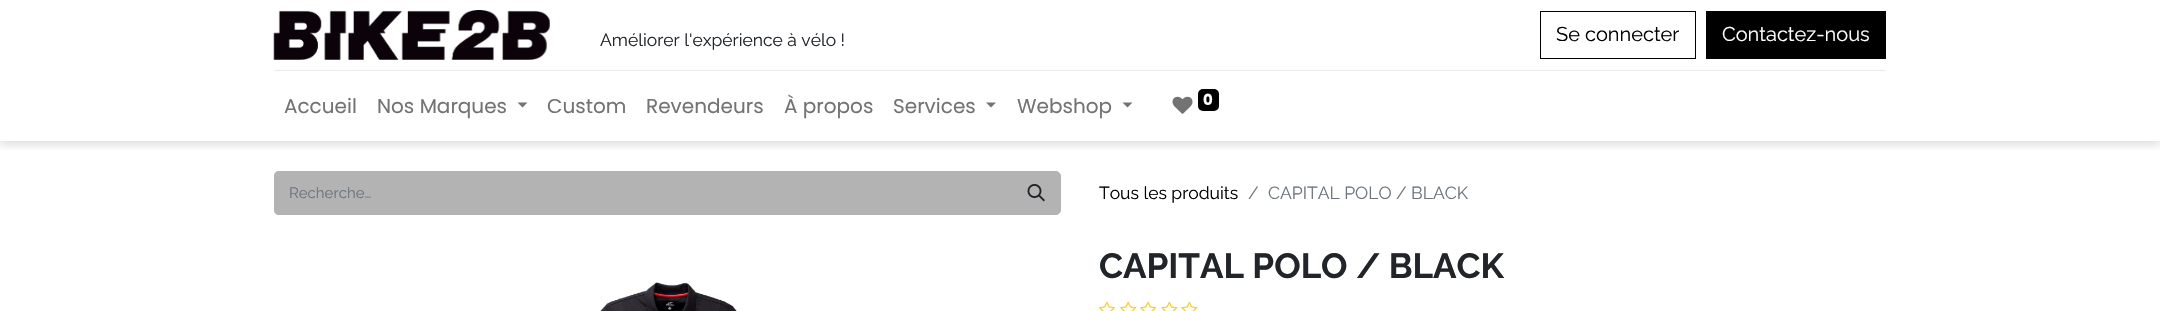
void draw(SkCanvas* canvas) {
    SkPaint paint;
    paint.setAntiAlias(true);
    canvas->clear(0xFFFFFFFF);
    canvas->save();
    canvas->clipRect(SkRect::MakeXYWH(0, 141, 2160, 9));
    paint.setColor(0x26000000);
    paint.setMaskFilter(SkMaskFilter::MakeBlur(kNormal_SkBlurStyle, 5));
    canvas->drawRect(SkRect::MakeXYWH(0, 3, 2160, 141), paint);
    paint.setMaskFilter(nullptr);
    canvas->restore();
    canvas->drawImageRect(SkImages::DeferredFromEncodedData(SkData::MakeFromFileName("img1.png")), SkRect::MakeXYWH(273, 10, 277, 50), SkSamplingOptions());
    SkFont font1(fontMgr->matchFamilyStyle("Raleway", SkFontStyle::Normal()), 17.5f);
    font1.setSubpixel(true);
    paint.setColor(0xFF212529);
    canvas->drawString("Améliorer l'expérience à vélo !", 600, 46, font1, paint);
    paint.setStyle(SkPaint::kStroke_Style);
    paint.setStrokeWidth(1);
    paint.setColor(0xFF000000);
    canvas->drawRect(SkRect::MakeXYWH(1540.5f, 11.5f, 155, 47), paint);
    SkFont font2(fontMgr->matchFamilyStyle("Raleway", SkFontStyle::Normal()), 20);
    font2.setSubpixel(true);
    paint.setStyle(SkPaint::kFill_Style);
    canvas->drawString("Se connecter", 1556, 41, font2, paint);
    canvas->drawRect(SkRect::MakeXYWH(1706, 11, 180, 48), paint);
    paint.setColor(0xFFFFFFFF);
    canvas->drawString("Contactez-nous", 1722, 41, font2, paint);
    paint.setColor(0xFFE9ECEF);
    canvas->drawRect(SkRect::MakeXYWH(274, 70, 1612, 1), paint);
    SkFont font3(fontMgr->matchFamilyStyle("Poppins", SkFontStyle::Normal()), 20);
    font3.setSubpixel(true);
    paint.setColor(0xFF737373);
    canvas->drawString("Accueil", 284, 113, font3, paint);
    canvas->drawString("Nos Marques", 377, 113, font3, paint);
    canvas->drawPath(SkPathBuilder().moveTo(517.5f, 102.5f).lineTo(527.5f, 102.5f).lineTo(522.5f, 107.5f).close().detach(), paint);
    canvas->drawString("Custom", 547, 113, font3, paint);
    canvas->drawString("Revendeurs", 646, 113, font3, paint);
    canvas->drawString("À propos", 784, 113, font3, paint);
    canvas->drawString("Services", 893, 113, font3, paint);
    canvas->drawPath(SkPathBuilder().moveTo(986, 102.5f).lineTo(996, 102.5f).lineTo(991, 107.5f).close().detach(), paint);
    canvas->drawString("Webshop", 1017, 113, font3, paint);
    canvas->drawPath(SkPathBuilder().moveTo(1122.5f, 102.5f).lineTo(1132.5f, 102.5f).lineTo(1127.5f, 107.5f).close().detach(), paint);
    canvas->drawImageRect(SkImages::DeferredFromEncodedData(SkData::MakeFromFileName("img2.png")), SkRect::MakeXYWH(1172, 96, 21, 18), SkSamplingOptions());
    paint.setColor(0xFF000000);
    canvas->drawRoundRect(SkRect::MakeXYWH(1198, 89, 21, 22), 5, 5, paint);
    SkFont font4(fontMgr->matchFamilyStyle("Poppins", SkFontStyle::Bold()), 15);
    font4.setSubpixel(true);
    paint.setColor(0xFFFFFFFF);
    canvas->drawString("0", 1203, 105, font4, paint);
    paint.setColor(0xFFB3B3B3);
    canvas->drawPath(SkPathBuilder().moveTo(279, 171).lineTo(1013, 171).lineTo(1013, 215).lineTo(279, 215).cubicTo(276, 215, 274, 213, 274, 210).lineTo(274, 176).cubicTo(274, 173, 276, 171, 279, 171).close().detach(), paint);
    SkFont font5(fontMgr->matchFamilyStyle("Raleway", SkFontStyle::Normal()), 15);
    font5.setSubpixel(true);
    paint.setColor(0xFF6C757D);
    canvas->drawString("Recherche…", 289, 198, font5, paint);
    paint.setColor(0xFFB3B3B3);
    canvas->drawPath(SkPathBuilder().moveTo(1011.5f, 171.5f).lineTo(1056, 171.5f).cubicTo(1058.5f, 171.5f, 1060.5f, 173.5f, 1060.5f, 176).lineTo(1060.5f, 210).cubicTo(1060.5f, 212.5f, 1058.5f, 214.5f, 1056, 214.5f).lineTo(1011.5f, 214.5f).close().detach(), paint);
    paint.setStyle(SkPaint::kStroke_Style);
    canvas->drawPath(SkPathBuilder().moveTo(1011.5f, 171.5f).lineTo(1056, 171.5f).cubicTo(1058.5f, 171.5f, 1060.5f, 173.5f, 1060.5f, 176).lineTo(1060.5f, 210).cubicTo(1060.5f, 212.5f, 1058.5f, 214.5f, 1056, 214.5f).lineTo(1011.5f, 214.5f).close().detach(), paint);
    canvas->drawImageRect(SkImages::DeferredFromEncodedData(SkData::MakeFromFileName("img3.png")), SkRect::MakeXYWH(1027, 184, 18, 18), SkSamplingOptions());
    paint.setStyle(SkPaint::kFill_Style);
    paint.setColor(0xFF000000);
    canvas->drawString("Tous les produits", 1099, 199, font1, paint);
    paint.setColor(0xFF6C757D);
    canvas->drawString("/", 1248, 199, font1, paint);
    canvas->drawString("CAPITAL POLO / BLACK", 1268, 199, font1, paint);
    SkFont font6(fontMgr->matchFamilyStyle("Raleway", SkFontStyle::Bold()), 35);
    font6.setSubpixel(true);
    paint.setColor(0xFF212529);
    canvas->drawString("CAPITAL POLO / BLACK", 1099, 278, font6, paint);
    canvas->drawImageRect(SkImages::DeferredFromEncodedData(SkData::MakeFromFileName("img4.png")), SkRect::MakeXYWH(1098, 301, 17, 10), SkSamplingOptions());
    canvas->drawImageRect(SkImages::DeferredFromEncodedData(SkData::MakeFromFileName("img5.png")), SkRect::MakeXYWH(1120, 301, 17, 10), SkSamplingOptions());
    canvas->drawImageRect(SkImages::DeferredFromEncodedData(SkData::MakeFromFileName("img5.png")), SkRect::MakeXYWH(1140, 301, 17, 10), SkSamplingOptions());
    canvas->drawImageRect(SkImages::DeferredFromEncodedData(SkData::MakeFromFileName("img6.png")), SkRect::MakeXYWH(1161, 301, 17, 10), SkSamplingOptions());
    canvas->drawImageRect(SkImages::DeferredFromEncodedData(SkData::MakeFromFileName("img6.png")), SkRect::MakeXYWH(1181, 301, 17, 10), SkSamplingOptions());
    canvas->drawImageRect(SkImages::DeferredFromEncodedData(SkData::MakeFromFileName("img7.png")), SkRect::MakeXYWH(600, 282, 137, 29), SkSamplingOptions());
}
